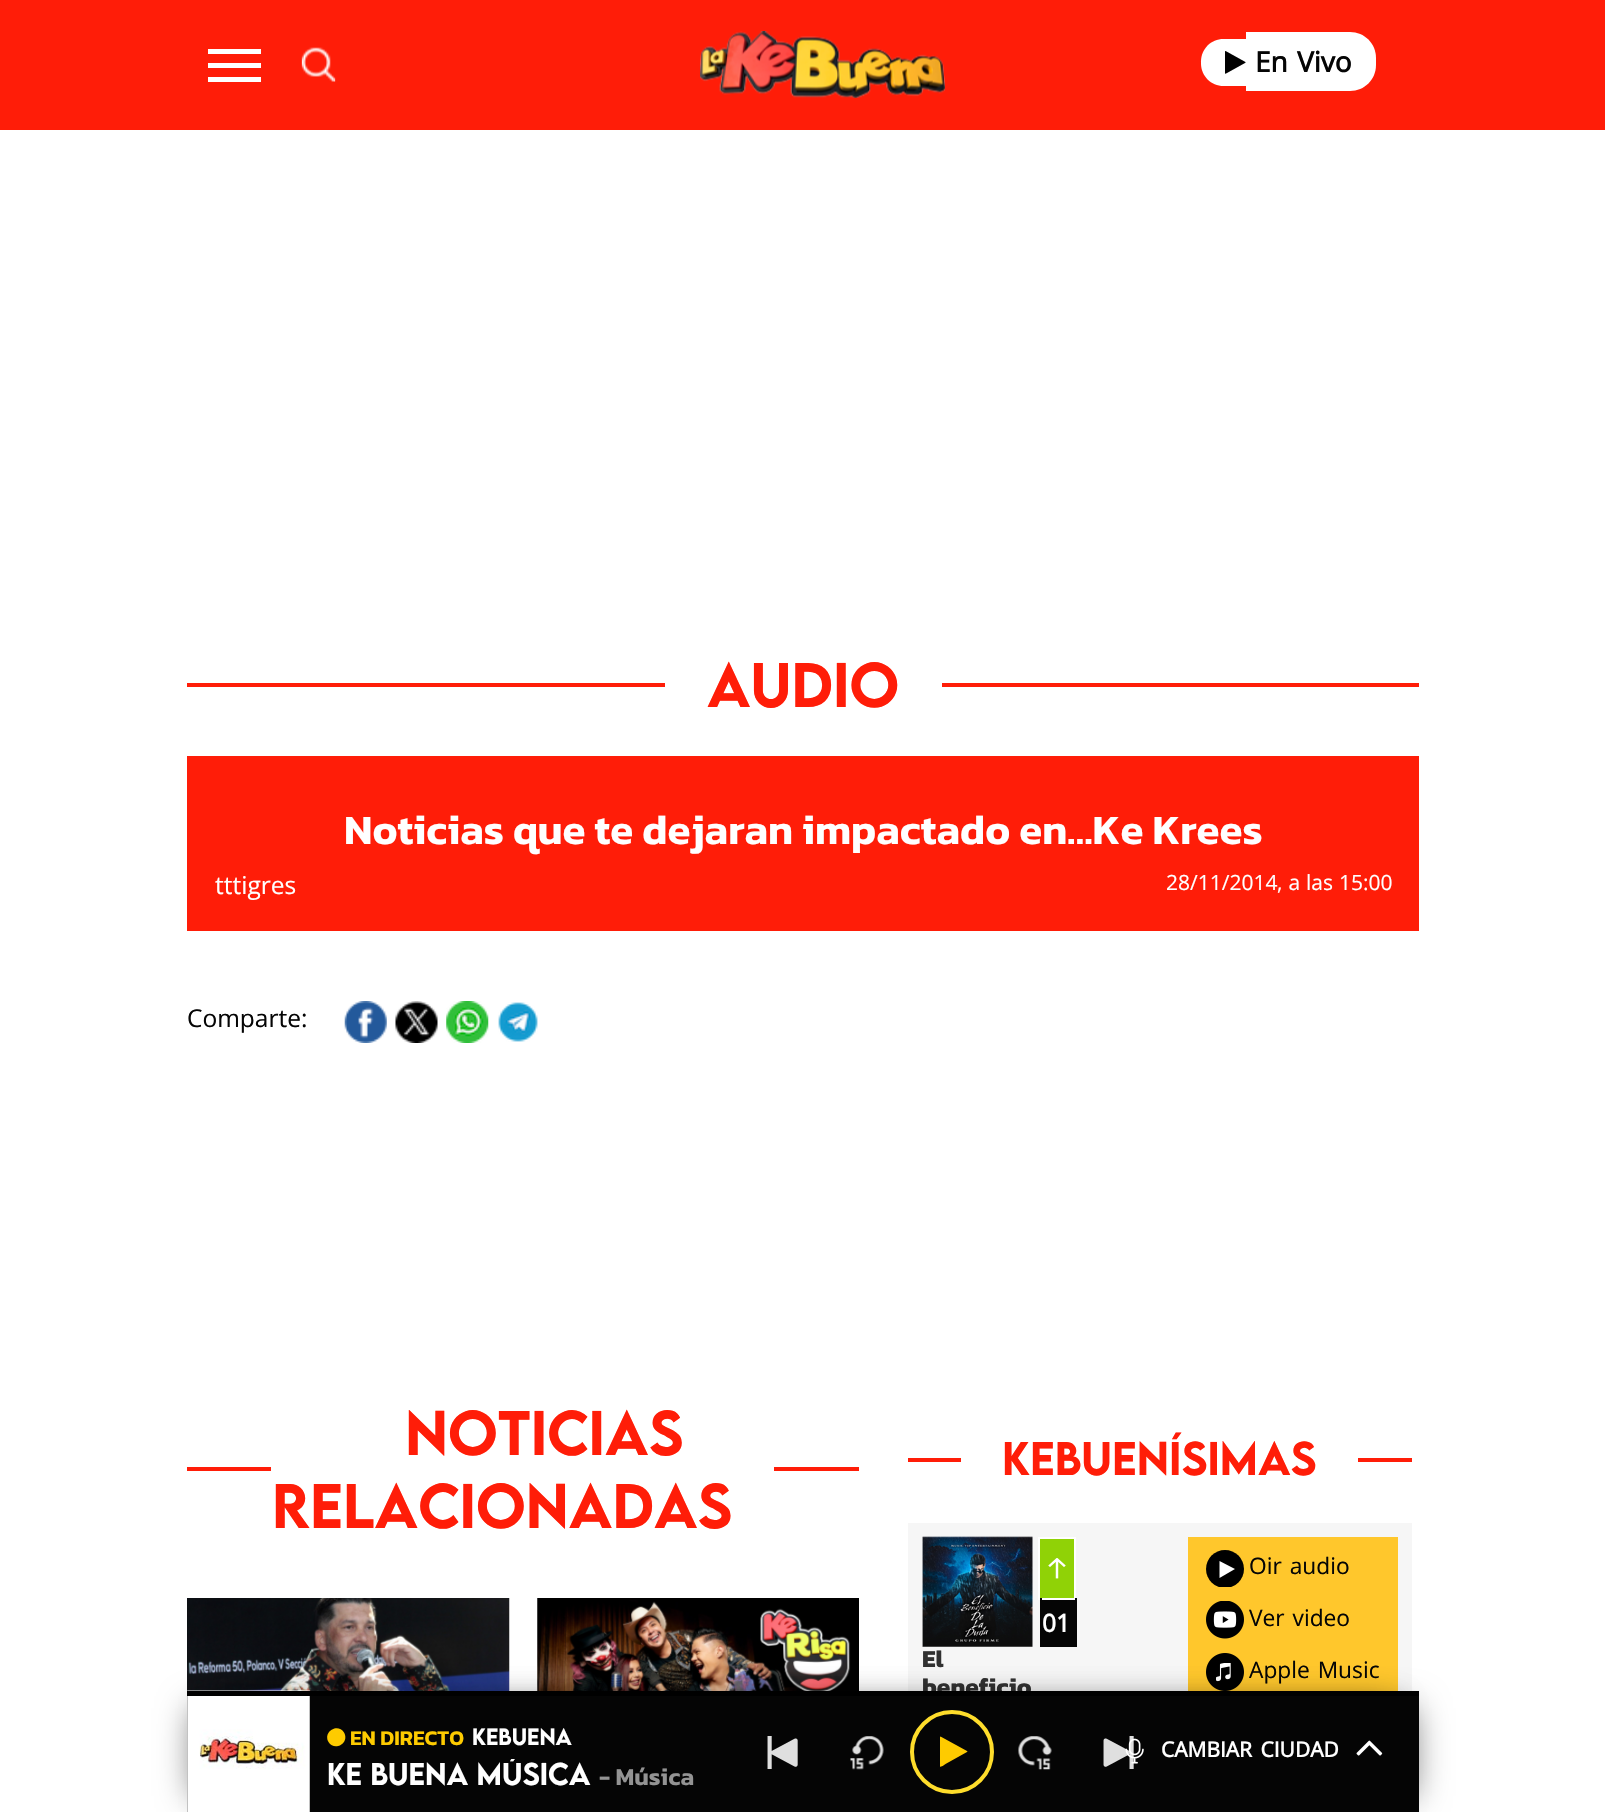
void draw(SkCanvas* canvas) {
    SkPaint paint;
    paint.setAntiAlias(true);
    auto spacedText = [&](const char* s, float x, float y, const SkFont& font, const SkPaint& ink, float letter, float word) {
        std::vector<SkGlyphID> glyphs(font.countText(s, strlen(s), SkTextEncoding::kUTF8));
        std::vector<float> xs(glyphs.size());
        font.textToGlyphs(s, strlen(s), SkTextEncoding::kUTF8, glyphs);
        font.getXPos(glyphs, xs, x);
        float extra = 0;
        for (size_t i = 0; i < glyphs.size(); i++) {
            xs[i] += extra;
            extra += letter + word * (glyphs[i] == font.unicharToGlyph(' '));
        }
        canvas->drawTextBlob(SkTextBlob::MakeFromPosHGlyphs(glyphs, xs, y, font), 0, 0, ink);
    };
    canvas->clear(0xFFFFFFFF);
    paint.setColor(0xFFFF1D08);
    canvas->drawRect(SkRect::MakeXYWH(0, 0, 1605, 130), paint);
    paint.setColor(0xFFFFFFFF);
    canvas->drawRect(SkRect::MakeXYWH(208, 63, 53, 5), paint);
    canvas->drawRect(SkRect::MakeXYWH(208, 49, 53, 5), paint);
    canvas->drawRect(SkRect::MakeXYWH(208, 77, 53, 5), paint);
    canvas->drawImageRect(SkImages::DeferredFromEncodedData(SkData::MakeFromFileName("img1.png")), SkRect::MakeXYWH(301, 47, 35, 35), SkSamplingOptions());
    canvas->drawImageRect(SkImages::DeferredFromEncodedData(SkData::MakeFromFileName("img2.png")), SkRect::MakeXYWH(700, 31, 245, 67), SkSamplingOptions());
    canvas->drawPath(SkPathBuilder().moveTo(1223.5f, 39).lineTo(1246, 39).lineTo(1246, 86).lineTo(1223.5f, 86).cubicTo(1211, 86, 1201, 76, 1201, 63.5f).lineTo(1201, 61.5f).cubicTo(1201, 49, 1211, 39, 1223.5f, 39).close().detach(), paint);
    canvas->drawPath(SkPathBuilder().moveTo(1246, 32).lineTo(1350, 32).cubicTo(1364.5f, 32, 1376, 43.5f, 1376, 58).lineTo(1376, 65).cubicTo(1376, 79.5f, 1364.5f, 91, 1350, 91).lineTo(1246, 91).close().detach(), paint);
    canvas->drawImageRect(SkImages::DeferredFromEncodedData(SkData::MakeFromFileName("img3.png")), SkRect::MakeXYWH(1225, 51, 21, 23), SkSamplingOptions());
    SkFont font1(fontMgr->matchFamilyStyle("Open Sans", SkFontStyle::Bold()), 28);
    font1.setSubpixel(true);
    paint.setColor(0xFF050505);
    spacedText("En Vivo", 1255, 72, font1, paint, 0, 2);
    paint.setColor(0xFFFF1D08);
    canvas->drawRect(SkRect::MakeXYWH(187, 683, 1232, 4), paint);
    paint.setColor(0xFFFFFFFF);
    canvas->drawRect(SkRect::MakeXYWH(665, 683, 277, 4), paint);
    SkFont font2(fontMgr->matchFamilyStyle("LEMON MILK", SkFontStyle(500, SkFontStyle::kNormal_Width, SkFontStyle::kUpright_Slant)), 56);
    font2.setSubpixel(true);
    paint.setColor(0xFFFF1D08);
    canvas->drawString("AUDIO", 707, 707, font2, paint);
    canvas->drawRect(SkRect::MakeXYWH(187, 756, 1232, 175), paint);
    SkFont font3(fontMgr->matchFamilyStyle("Kanit", SkFontStyle(600, SkFontStyle::kNormal_Width, SkFontStyle::kUpright_Slant)), 42);
    font3.setSubpixel(true);
    paint.setColor(0xFFFFFFFF);
    canvas->drawString("Noticias que te dejaran impactado en…Ke Krees", 344, 844, font3, paint);
    SkFont font4(fontMgr->matchFamilyStyle("Open Sans", SkFontStyle::Normal()), 24.5f);
    font4.setSubpixel(true);
    canvas->drawString("tttigres", 215, 894, font4, paint);
    SkFont font5(fontMgr->matchFamilyStyle("Open Sans", SkFontStyle::Normal()), 21);
    font5.setSubpixel(true);
    canvas->drawString("28/11/2014", 1166, 890, font5, paint);
    spacedText(", a las 15:00", 1277, 890, font5, paint, 0, 0.5f);
    paint.setColor(0xFF050505);
    canvas->drawString("Comparte:", 187, 1027, font4, paint);
    canvas->drawImageRect(SkImages::DeferredFromEncodedData(SkData::MakeFromFileName("img4.png")), SkRect::MakeXYWH(344, 1001, 43, 42), SkSamplingOptions());
    canvas->drawImageRect(SkImages::DeferredFromEncodedData(SkData::MakeFromFileName("img5.png")), SkRect::MakeXYWH(395, 1001, 43, 42), SkSamplingOptions());
    canvas->drawImageRect(SkImages::DeferredFromEncodedData(SkData::MakeFromFileName("img6.png")), SkRect::MakeXYWH(446, 1001, 43, 42), SkSamplingOptions());
    canvas->drawImageRect(SkImages::DeferredFromEncodedData(SkData::MakeFromFileName("img7.png")), SkRect::MakeXYWH(498, 1002, 40, 40), SkSamplingOptions());
    paint.setColor(0xFFFF1D08);
    canvas->drawString("NOTICIAS", 405, 1455, font2, paint);
    canvas->drawRect(SkRect::MakeXYWH(187, 1467, 672, 4), paint);
    paint.setColor(0xFFFFFFFF);
    canvas->drawRect(SkRect::MakeXYWH(271, 1467, 503, 4), paint);
    paint.setColor(0xFFFF1D08);
    canvas->drawString("RELACIONADAS", 272, 1528, font2, paint);
    canvas->drawImageRect(SkImages::DeferredFromEncodedData(SkData::MakeFromFileName("img8.png")), SkRect::MakeXYWH(187, 1598, 323, 93), SkSamplingOptions());
    canvas->drawImageRect(SkImages::DeferredFromEncodedData(SkData::MakeFromFileName("img9.png")), SkRect::MakeXYWH(537, 1598, 322, 93), SkSamplingOptions());
    canvas->drawRect(SkRect::MakeXYWH(908, 1458, 504, 4), paint);
    paint.setColor(0xFFFFFFFF);
    canvas->drawRect(SkRect::MakeXYWH(961, 1458, 397, 4), paint);
    SkFont font6(fontMgr->matchFamilyStyle("LEMON MILK", SkFontStyle(500, SkFontStyle::kNormal_Width, SkFontStyle::kUpright_Slant)), 42);
    font6.setSubpixel(true);
    paint.setColor(0xFFFF1D08);
    canvas->drawString("Kebuenísimas", 1002, 1475, font6, paint);
    paint.setColor(0xFFF6F6F6);
    canvas->drawRect(SkRect::MakeXYWH(908, 1523, 504, 168), paint);
    canvas->drawImageRect(SkImages::DeferredFromEncodedData(SkData::MakeFromFileName("img10.png")), SkRect::MakeXYWH(922, 1536, 111, 111), SkSamplingOptions());
    paint.setColor(0xFF90D206);
    canvas->drawRect(SkRect::MakeXYWH(1039, 1538, 36, 61), paint);
    paint.setStyle(SkPaint::kStroke_Style);
    paint.setStrokeWidth(2);
    paint.setColor(0xFFFFFFFF);
    canvas->drawRect(SkRect::MakeXYWH(1039, 1538, 36, 61), paint);
    canvas->drawImageRect(SkImages::DeferredFromEncodedData(SkData::MakeFromFileName("img11.png")), SkRect::MakeXYWH(1048, 1558, 18, 21), SkSamplingOptions());
    paint.setStyle(SkPaint::kFill_Style);
    paint.setColor(0xFF050505);
    canvas->drawRect(SkRect::MakeXYWH(1042, 1600, 33, 47), paint);
    canvas->drawRect(SkRect::MakeXYWH(1075, 1598, 2, 49), paint);
    canvas->drawRect(SkRect::MakeXYWH(1040, 1598, 2, 49), paint);
    SkFont font7(fontMgr->matchFamilyStyle("Open Sans", SkFontStyle::Bold()), 24.5f);
    font7.setSubpixel(true);
    paint.setColor(0xFFFFFFFF);
    canvas->drawString("01", 1042, 1632, font7, paint);
    SkFont font8(fontMgr->matchFamilyStyle("Kanit", SkFontStyle::Bold()), 24.5f);
    font8.setSubpixel(true);
    paint.setColor(0xFF313131);
    canvas->drawString("El", 922, 1667, font8, paint);
    canvas->drawString("beneficio", 922, 1695, font8, paint);
    paint.setColor(0xFFFFC72C);
    canvas->drawRect(SkRect::MakeXYWH(1188, 1537, 210, 154), paint);
    SkFont font9(fontMgr->matchFamilyStyle("Open Sans", SkFontStyle::Normal()), 22.75f);
    font9.setSubpixel(true);
    paint.setColor(0xFF050505);
    spacedText("Oir audio", 1249, 1574, font9, paint, 0, 2);
    canvas->save();
    canvas->clipRect(SkRect::MakeXYWH(1206, 1549, 38, 38));
    paint.setColor(0xFF000000);
    canvas->drawCircle(1225, 1569, 19, paint);
    canvas->restore();
    paint.setColor(0xFFFFFFFF);
    canvas->drawPath(SkPathBuilder(SkPathFillType::kEvenOdd).moveTo(1219.5f, 1561).lineTo(1219.5f, 1578).lineTo(1235, 1569).close().detach(), paint);
    canvas->drawImageRect(SkImages::DeferredFromEncodedData(SkData::MakeFromFileName("img12.png")), SkRect::MakeXYWH(1206, 1601, 38, 38), SkSamplingOptions());
    paint.setColor(0xFF050505);
    spacedText("Ver video", 1249, 1626, font9, paint, 0, 2);
    canvas->drawImageRect(SkImages::DeferredFromEncodedData(SkData::MakeFromFileName("img13.png")), SkRect::MakeXYWH(1206, 1653, 38, 38), SkSamplingOptions());
    spacedText("Apple Music", 1249, 1678, font9, paint, 0, 2);
    paint.setColor(0x80000000);
    paint.setMaskFilter(SkMaskFilter::MakeBlur(kNormal_SkBlurStyle, 17.5f));
    canvas->drawRect(SkRect::MakeXYWH(217, 1708, 1197, 88), paint);
    paint.setMaskFilter(nullptr);
    paint.setMaskFilter(SkMaskFilter::MakeBlur(kNormal_SkBlurStyle, 17.5f));
    canvas->drawRect(SkRect::MakeXYWH(193, 1708, 1197, 88), paint);
    paint.setMaskFilter(nullptr);
    paint.setColor(0xFF050505);
    canvas->drawRect(SkRect::MakeXYWH(187, 1696, 1232, 116), paint);
    canvas->drawImageRect(SkImages::DeferredFromEncodedData(SkData::MakeFromFileName("img14.png")), SkRect::MakeXYWH(187, 1690, 123, 122), SkSamplingOptions());
    paint.setColor(0xFF000000);
    canvas->drawRect(SkRect::MakeXYWH(187, 1691, 1232, 5), paint);
    paint.setColor(0xFFFECB00);
    canvas->drawPath(SkPathBuilder().moveTo(344, 1732.5f).cubicTo(350, 1743, 334.5f, 1752, 328.5f, 1742).cubicTo(322.5f, 1731.5f, 338, 1722.5f, 344, 1732.5f).close().detach(), paint);
    SkFont font10(fontMgr->matchFamilyStyle("Kanit", SkFontStyle(600, SkFontStyle::kNormal_Width, SkFontStyle::kUpright_Slant)), 21);
    font10.setSubpixel(true);
    canvas->drawString("EN DIRECTO", 350, 1745, font10, paint);
    SkFont font11(fontMgr->matchFamilyStyle("LEMON MILK", SkFontStyle(500, SkFontStyle::kNormal_Width, SkFontStyle::kUpright_Slant)), 21);
    font11.setSubpixel(true);
    paint.setColor(0xFFFFFFFF);
    canvas->drawString("KeBuena", 472, 1745, font11, paint);
    canvas->save();
    canvas->clipRect(SkRect::MakeXYWH(327, 1759, 398, 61));
    SkFont font12(fontMgr->matchFamilyStyle("LEMON MILK", SkFontStyle(500, SkFontStyle::kNormal_Width, SkFontStyle::kUpright_Slant)), 28);
    font12.setSubpixel(true);
    canvas->drawString("Ke Buena Música", 327, 1785, font12, paint);
    canvas->restore();
    SkFont font13(fontMgr->matchFamilyStyle("Kanit", SkFontStyle(600, SkFontStyle::kNormal_Width, SkFontStyle::kUpright_Slant)), 24.5f);
    font13.setSubpixel(true);
    paint.setColor(0xFF939393);
    canvas->drawString("- Música", 599, 1785, font13, paint);
    canvas->drawImageRect(SkImages::DeferredFromEncodedData(SkData::MakeFromFileName("img15.png")), SkRect::MakeXYWH(767, 1736, 31, 33), SkSamplingOptions());
    canvas->drawImageRect(SkImages::DeferredFromEncodedData(SkData::MakeFromFileName("img16.png")), SkRect::MakeXYWH(850, 1736, 34, 34), SkSamplingOptions());
    paint.setStyle(SkPaint::kStroke_Style);
    paint.setStrokeWidth(4);
    paint.setColor(0xFFFFDD2B);
    canvas->drawCircle(952, 1752, 40, paint);
    paint.setStyle(SkPaint::kFill_Style);
    paint.setColor(0xFFFECB00);
    canvas->drawPath(SkPathBuilder().moveTo(967, 1752).lineTo(945.5f, 1764).cubicTo(945, 1764.5f, 941, 1767.5f, 940, 1766.5f).lineTo(940, 1737).lineTo(940.5f, 1736.5f).lineTo(967, 1751).lineTo(967.5f, 1751.5f).close().detach(), paint);
    canvas->drawImageRect(SkImages::DeferredFromEncodedData(SkData::MakeFromFileName("img17.png")), SkRect::MakeXYWH(1018, 1736, 34, 34), SkSamplingOptions());
    canvas->drawImageRect(SkImages::DeferredFromEncodedData(SkData::MakeFromFileName("img18.png")), SkRect::MakeXYWH(1103, 1736, 31, 33), SkSamplingOptions());
    canvas->drawImageRect(SkImages::DeferredFromEncodedData(SkData::MakeFromFileName("img19.png")), SkRect::MakeXYWH(1125, 1738, 19, 26), SkSamplingOptions());
    SkFont font14(fontMgr->matchFamilyStyle("Open Sans", SkFontStyle::Bold()), 21);
    font14.setSubpixel(true);
    paint.setColor(0xFFFFFFFF);
    spacedText("CAMBIAR CIUDAD", 1161, 1757, font14, paint, 0, 3);
    canvas->drawImageRect(SkImages::DeferredFromEncodedData(SkData::MakeFromFileName("img20.png")), SkRect::MakeXYWH(1356, 1740, 27, 16), SkSamplingOptions());
}
